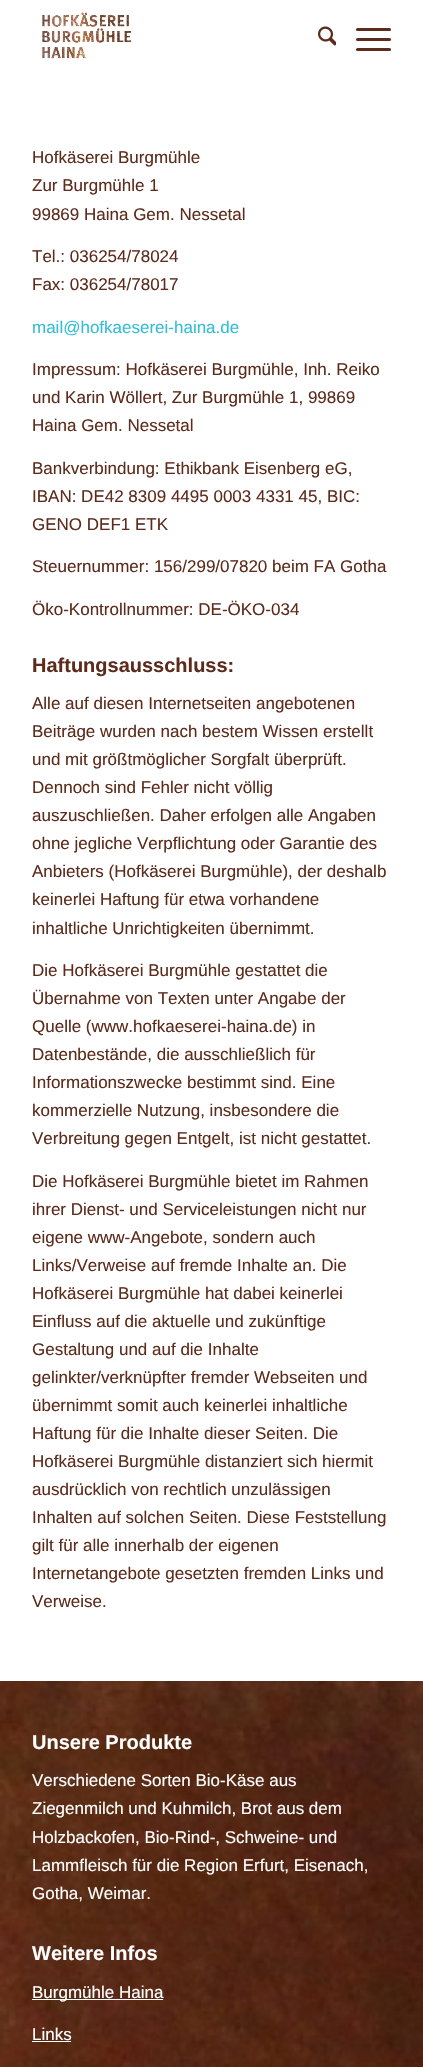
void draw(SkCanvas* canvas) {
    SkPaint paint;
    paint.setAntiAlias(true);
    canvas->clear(0xFFFFFFFF);
    canvas->drawImageRect(SkImages::DeferredFromEncodedData(SkData::MakeFromFileName("img1.png")), SkRect::MakeXYWH(42, 12, 90, 47), SkSamplingOptions());
    canvas->drawImageRect(SkImages::DeferredFromEncodedData(SkData::MakeFromFileName("img2.png")), SkRect::MakeXYWH(318, 26, 18, 20), SkSamplingOptions());
    paint.setColor(0xFF5C2B1B);
    canvas->drawRoundRect(SkRect::MakeXYWH(356, 38, 35, 3), 1.5f, 1.5f, paint);
    canvas->drawRoundRect(SkRect::MakeXYWH(356, 28, 35, 3), 1.5f, 1.5f, paint);
    canvas->drawRoundRect(SkRect::MakeXYWH(356, 48, 35, 3), 1.5f, 1.5f, paint);
    SkFont font1(fontMgr->matchFamilyStyle("Liberation Sans", SkFontStyle::Normal()), 17);
    font1.setSubpixel(true);
    canvas->drawString("Hofkäserei Burgmühle", 32, 163, font1, paint);
    canvas->drawString("Zur Burgmühle 1", 32, 191, font1, paint);
    canvas->drawString("99869 Haina Gem. Nessetal", 32, 220, font1, paint);
    canvas->drawString("Tel.: 036254/78024", 32, 262, font1, paint);
    canvas->drawString("Fax: 036254/78017", 32, 290, font1, paint);
    paint.setColor(0xFF33BED6);
    canvas->drawString("mail@hofkaeserei-haina.de", 32, 333, font1, paint);
    paint.setColor(0xFF5C2B1B);
    canvas->drawString("Impressum: Hofkäserei Burgmühle, Inh. Reiko", 32, 375, font1, paint);
    canvas->drawString("und Karin Wöllert, Zur Burgmühle 1, 99869", 32, 403, font1, paint);
    canvas->drawString("Haina Gem. Nessetal", 32, 431, font1, paint);
    canvas->drawString("Bankverbindung: Ethikbank Eisenberg eG,", 32, 474, font1, paint);
    canvas->drawString("IBAN: DE42 8309 4495 0003 4331 45, BIC:", 32, 502, font1, paint);
    canvas->drawString("GENO DEF1 ETK", 32, 530, font1, paint);
    canvas->drawString("Steuernummer: 156/299/07820 beim FA Gotha", 32, 572, font1, paint);
    canvas->drawString("Öko-Kontrollnummer: DE-ÖKO-034", 32, 615, font1, paint);
    SkFont font2(fontMgr->matchFamilyStyle("Liberation Sans", SkFontStyle::Bold()), 20);
    font2.setSubpixel(true);
    canvas->drawString("Haftungsausschluss:", 32, 672, font2, paint);
    canvas->drawString("Alle auf diesen Internetseiten angebotenen", 32, 709, font1, paint);
    canvas->drawString("Beiträge wurden nach bestem Wissen erstellt", 32, 737, font1, paint);
    canvas->drawString("und mit größtmöglicher Sorgfalt überprüft.", 32, 765, font1, paint);
    canvas->drawString("Dennoch sind Fehler nicht völlig", 32, 793, font1, paint);
    canvas->drawString("auszuschließen. Daher erfolgen alle Angaben", 32, 821, font1, paint);
    canvas->drawString("ohne jegliche Verpflichtung oder Garantie des", 32, 849, font1, paint);
    canvas->drawString("Anbieters (Hofkäserei Burgmühle), der deshalb", 32, 877, font1, paint);
    canvas->drawString("keinerlei Haftung für etwa vorhandene", 32, 905, font1, paint);
    canvas->drawString("inhaltliche Unrichtigkeiten übernimmt.", 32, 934, font1, paint);
    canvas->drawString("Die Hofkäserei Burgmühle gestattet die", 32, 976, font1, paint);
    canvas->drawString("Übernahme von Texten unter Angabe der", 32, 1004, font1, paint);
    canvas->drawString("Quelle (www.hofkaeserei-haina.de) in", 32, 1032, font1, paint);
    canvas->drawString("Datenbestände, die ausschließlich für", 32, 1060, font1, paint);
    canvas->drawString("Informationszwecke bestimmt sind. Eine", 32, 1088, font1, paint);
    canvas->drawString("kommerzielle Nutzung, insbesondere die", 32, 1116, font1, paint);
    canvas->drawString("Verbreitung gegen Entgelt, ist nicht gestattet.", 32, 1144, font1, paint);
    canvas->drawString("Die Hofkäserei Burgmühle bietet im Rahmen", 32, 1187, font1, paint);
    canvas->drawString("ihrer Dienst- und Serviceleistungen nicht nur", 32, 1215, font1, paint);
    canvas->drawString("eigene www-Angebote, sondern auch", 32, 1243, font1, paint);
    canvas->drawString("Links/Verweise auf fremde Inhalte an. Die", 32, 1271, font1, paint);
    canvas->drawString("Hofkäserei Burgmühle hat dabei keinerlei", 32, 1299, font1, paint);
    canvas->drawString("Einfluss auf die aktuelle und zukünftige", 32, 1327, font1, paint);
    canvas->drawString("Gestaltung und auf die Inhalte", 32, 1355, font1, paint);
    canvas->drawString("gelinkter/verknüpfter fremder Webseiten und", 32, 1383, font1, paint);
    canvas->drawString("übernimmt somit auch keinerlei inhaltliche", 32, 1411, font1, paint);
    canvas->drawString("Haftung für die Inhalte dieser Seiten. Die", 32, 1439, font1, paint);
    canvas->drawString("Hofkäserei Burgmühle distanziert sich hiermit", 32, 1467, font1, paint);
    canvas->drawString("ausdrücklich von rechtlich unzulässigen", 32, 1495, font1, paint);
    canvas->drawString("Inhalten auf solchen Seiten. Diese Feststellung", 32, 1523, font1, paint);
    canvas->drawString("gilt für alle innerhalb der eigenen", 32, 1551, font1, paint);
    canvas->drawString("Internetangebote gesetzten fremden Links und", 32, 1579, font1, paint);
    canvas->drawString("Verweise.", 32, 1607, font1, paint);
    canvas->drawImageRect(SkImages::DeferredFromEncodedData(SkData::MakeFromFileName("img3.png")), SkRect::MakeXYWH(0, 1681, 423, 386), SkSamplingOptions());
    paint.setColor(0xFFFFFFFF);
    canvas->drawString("Unsere Produkte", 32, 1749, font2, paint);
    canvas->drawString("Verschiedene Sorten Bio-Käse aus", 32, 1786, font1, paint);
    canvas->drawString("Ziegenmilch und Kuhmilch, Brot aus dem", 32, 1814, font1, paint);
    canvas->drawString("Holzbackofen, Bio-Rind-, Schweine- und", 32, 1843, font1, paint);
    canvas->drawString("Lammfleisch für die Region Erfurt, Eisenach,", 32, 1871, font1, paint);
    canvas->drawString("Gotha, Weimar.", 32, 1899, font1, paint);
    canvas->drawString("Weitere Infos", 32, 1960, font2, paint);
    canvas->drawRect(SkRect::MakeXYWH(32, 1999, 131, 1), paint);
    canvas->drawString("Burgmühle Haina", 32, 1998, font1, paint);
    canvas->drawString("Links", 32, 2040, font1, paint);
    canvas->drawRect(SkRect::MakeXYWH(32, 2041, 39, 1), paint);
}
